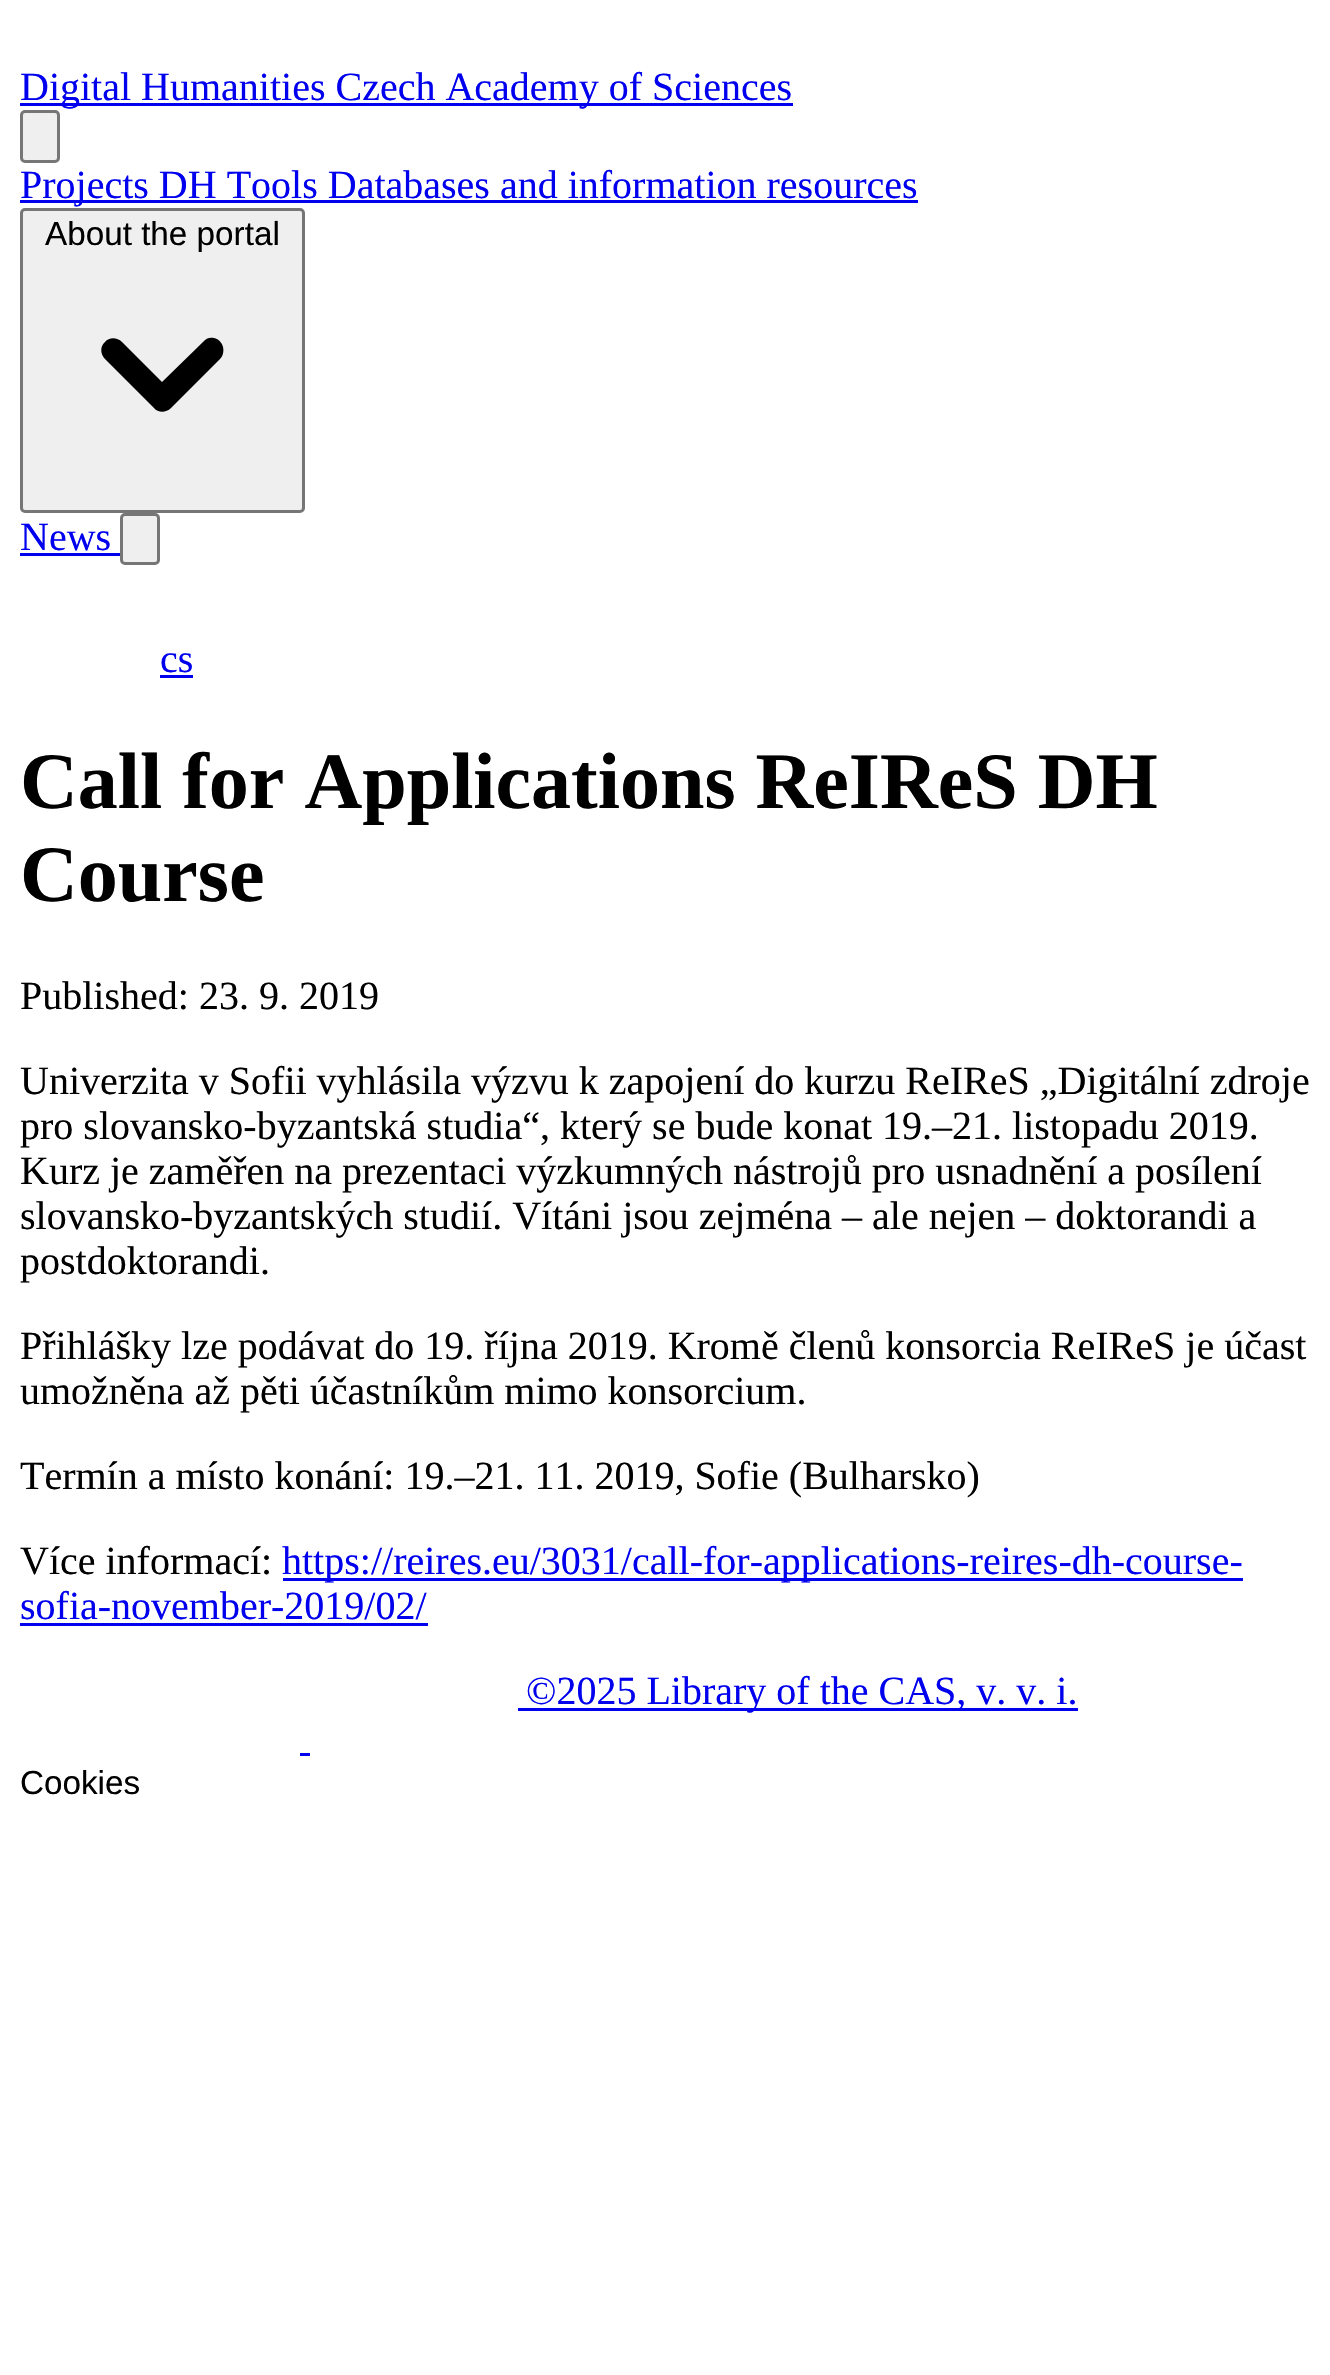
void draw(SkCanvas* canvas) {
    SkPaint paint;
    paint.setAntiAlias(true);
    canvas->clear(0xFFFFFFFF);
    paint.setColor(0xFF0000EE);
    canvas->drawRect(SkRect::MakeXYWH(20, 103, 773, 3), paint);
    SkFont font1(fontMgr->matchFamilyStyle("Liberation Serif", SkFontStyle::Normal()), 40);
    font1.setSubpixel(true);
    canvas->drawString("Digital Humanities Czech Academy of Sciences", 20, 100, font1, paint);
    paint.setColor(0xFFEFEFEF);
    canvas->drawRoundRect(SkRect::MakeXYWH(21.5f, 111.5f, 37, 50), 3.5f, 3.5f, paint);
    paint.setStyle(SkPaint::kStroke_Style);
    paint.setStrokeWidth(3);
    paint.setColor(0xFF767676);
    canvas->drawRoundRect(SkRect::MakeXYWH(21.5f, 111.5f, 37, 50), 3.5f, 3.5f, paint);
    paint.setStyle(SkPaint::kFill_Style);
    paint.setColor(0xFF0000EE);
    canvas->drawRect(SkRect::MakeXYWH(20, 200, 898, 3), paint);
    canvas->drawString("Projects DH Tools Databases and information resources", 20, 198, font1, paint);
    paint.setColor(0xFFEFEFEF);
    canvas->drawRoundRect(SkRect::MakeXYWH(21.5f, 209.5f, 282, 302), 3.5f, 3.5f, paint);
    paint.setStyle(SkPaint::kStroke_Style);
    paint.setColor(0xFF767676);
    canvas->drawRoundRect(SkRect::MakeXYWH(21.5f, 209.5f, 282, 302), 3.5f, 3.5f, paint);
    SkFont font2(fontMgr->matchFamilyStyle("Liberation Sans", SkFontStyle::Normal()), 33.25f);
    font2.setSubpixel(true);
    paint.setStyle(SkPaint::kFill_Style);
    paint.setColor(0xFF000000);
    canvas->drawString("About the portal", 45, 245, font2, paint);
    canvas->drawPath(SkPathBuilder(SkPathFillType::kEvenOdd).moveTo(105, 342).cubicTo(109, 337, 117, 337, 122, 342).lineTo(162, 382).lineTo(203, 342).cubicTo(206, 338, 210, 337, 214, 338).cubicTo(219, 339, 222, 343, 223, 347).cubicTo(224, 351, 223, 356, 220, 359).lineTo(171, 408).cubicTo(166, 413, 158, 413, 154, 408).lineTo(105, 359).cubicTo(100, 354, 100, 346, 105, 342).close().detach(), paint);
    paint.setColor(0xFF0000EE);
    canvas->drawString("News", 20, 550, font1, paint);
    canvas->drawRect(SkRect::MakeXYWH(20, 553, 100, 3), paint);
    paint.setColor(0xFFEFEFEF);
    canvas->drawRoundRect(SkRect::MakeXYWH(121.5f, 514.5f, 37, 49), 3.5f, 3.5f, paint);
    paint.setStyle(SkPaint::kStroke_Style);
    paint.setColor(0xFF767676);
    canvas->drawRoundRect(SkRect::MakeXYWH(121.5f, 514.5f, 37, 49), 3.5f, 3.5f, paint);
    paint.setStyle(SkPaint::kFill_Style);
    paint.setColor(0xFF0000EE);
    canvas->drawString("cs", 160, 672, font1, paint);
    canvas->drawRect(SkRect::MakeXYWH(160, 675, 33, 3), paint);
    SkFont font3(fontMgr->matchFamilyStyle("Liberation Serif", SkFontStyle::Bold()), 80);
    font3.setSubpixel(true);
    paint.setColor(0xFF000000);
    canvas->drawString("Call for Applications ReIReS DH", 20, 808, font3, paint);
    canvas->drawString("Course", 20, 901, font3, paint);
    canvas->drawString("Published: 23. 9. 2019", 20, 1009, font1, paint);
    canvas->drawString("Univerzita v Sofii vyhlásila výzvu k zapojení do kurzu ReIReS „Digitální zdroje", 20, 1094, font1, paint);
    canvas->drawString("pro slovansko-byzantská studia“, který se bude konat 19.–21. listopadu 2019.", 20, 1139, font1, paint);
    canvas->drawString("Kurz je zaměřen na prezentaci výzkumných nástrojů pro usnadnění a posílení", 20, 1184, font1, paint);
    canvas->drawString("slovansko-byzantských studií. Vítáni jsou zejména – ale nejen – doktorandi a", 20, 1229, font1, paint);
    canvas->drawString("postdoktorandi.", 20, 1274, font1, paint);
    canvas->drawString("Přihlášky lze podávat do 19. října 2019. Kromě členů konsorcia ReIReS je účast", 20, 1359, font1, paint);
    canvas->drawString("umožněna až pěti účastníkům mimo konsorcium.", 20, 1404, font1, paint);
    canvas->drawString("Termín a místo konání: 19.–21. 11. 2019, Sofie (Bulharsko)", 20, 1489, font1, paint);
    canvas->drawString("Více informací:", 20, 1574, font1, paint);
    paint.setColor(0xFF0000EE);
    canvas->drawRect(SkRect::MakeXYWH(283, 1578, 960, 3), paint);
    canvas->drawString("https://reires.eu/3031/call-for-applications-reires-dh-course-", 282, 1574, font1, paint);
    canvas->drawString("sofia-november-2019/02/", 20, 1619, font1, paint);
    canvas->drawRect(SkRect::MakeXYWH(20, 1623, 408, 3), paint);
    canvas->drawRect(SkRect::MakeXYWH(518, 1708, 560, 3), paint);
    canvas->drawString("©2025 Library of the CAS, v. v. i.", 526, 1704, font1, paint);
    canvas->drawRect(SkRect::MakeXYWH(300, 1753, 10, 3), paint);
    paint.setColor(0xFF000000);
    canvas->drawString("Cookies", 20, 1794, font2, paint);
}
